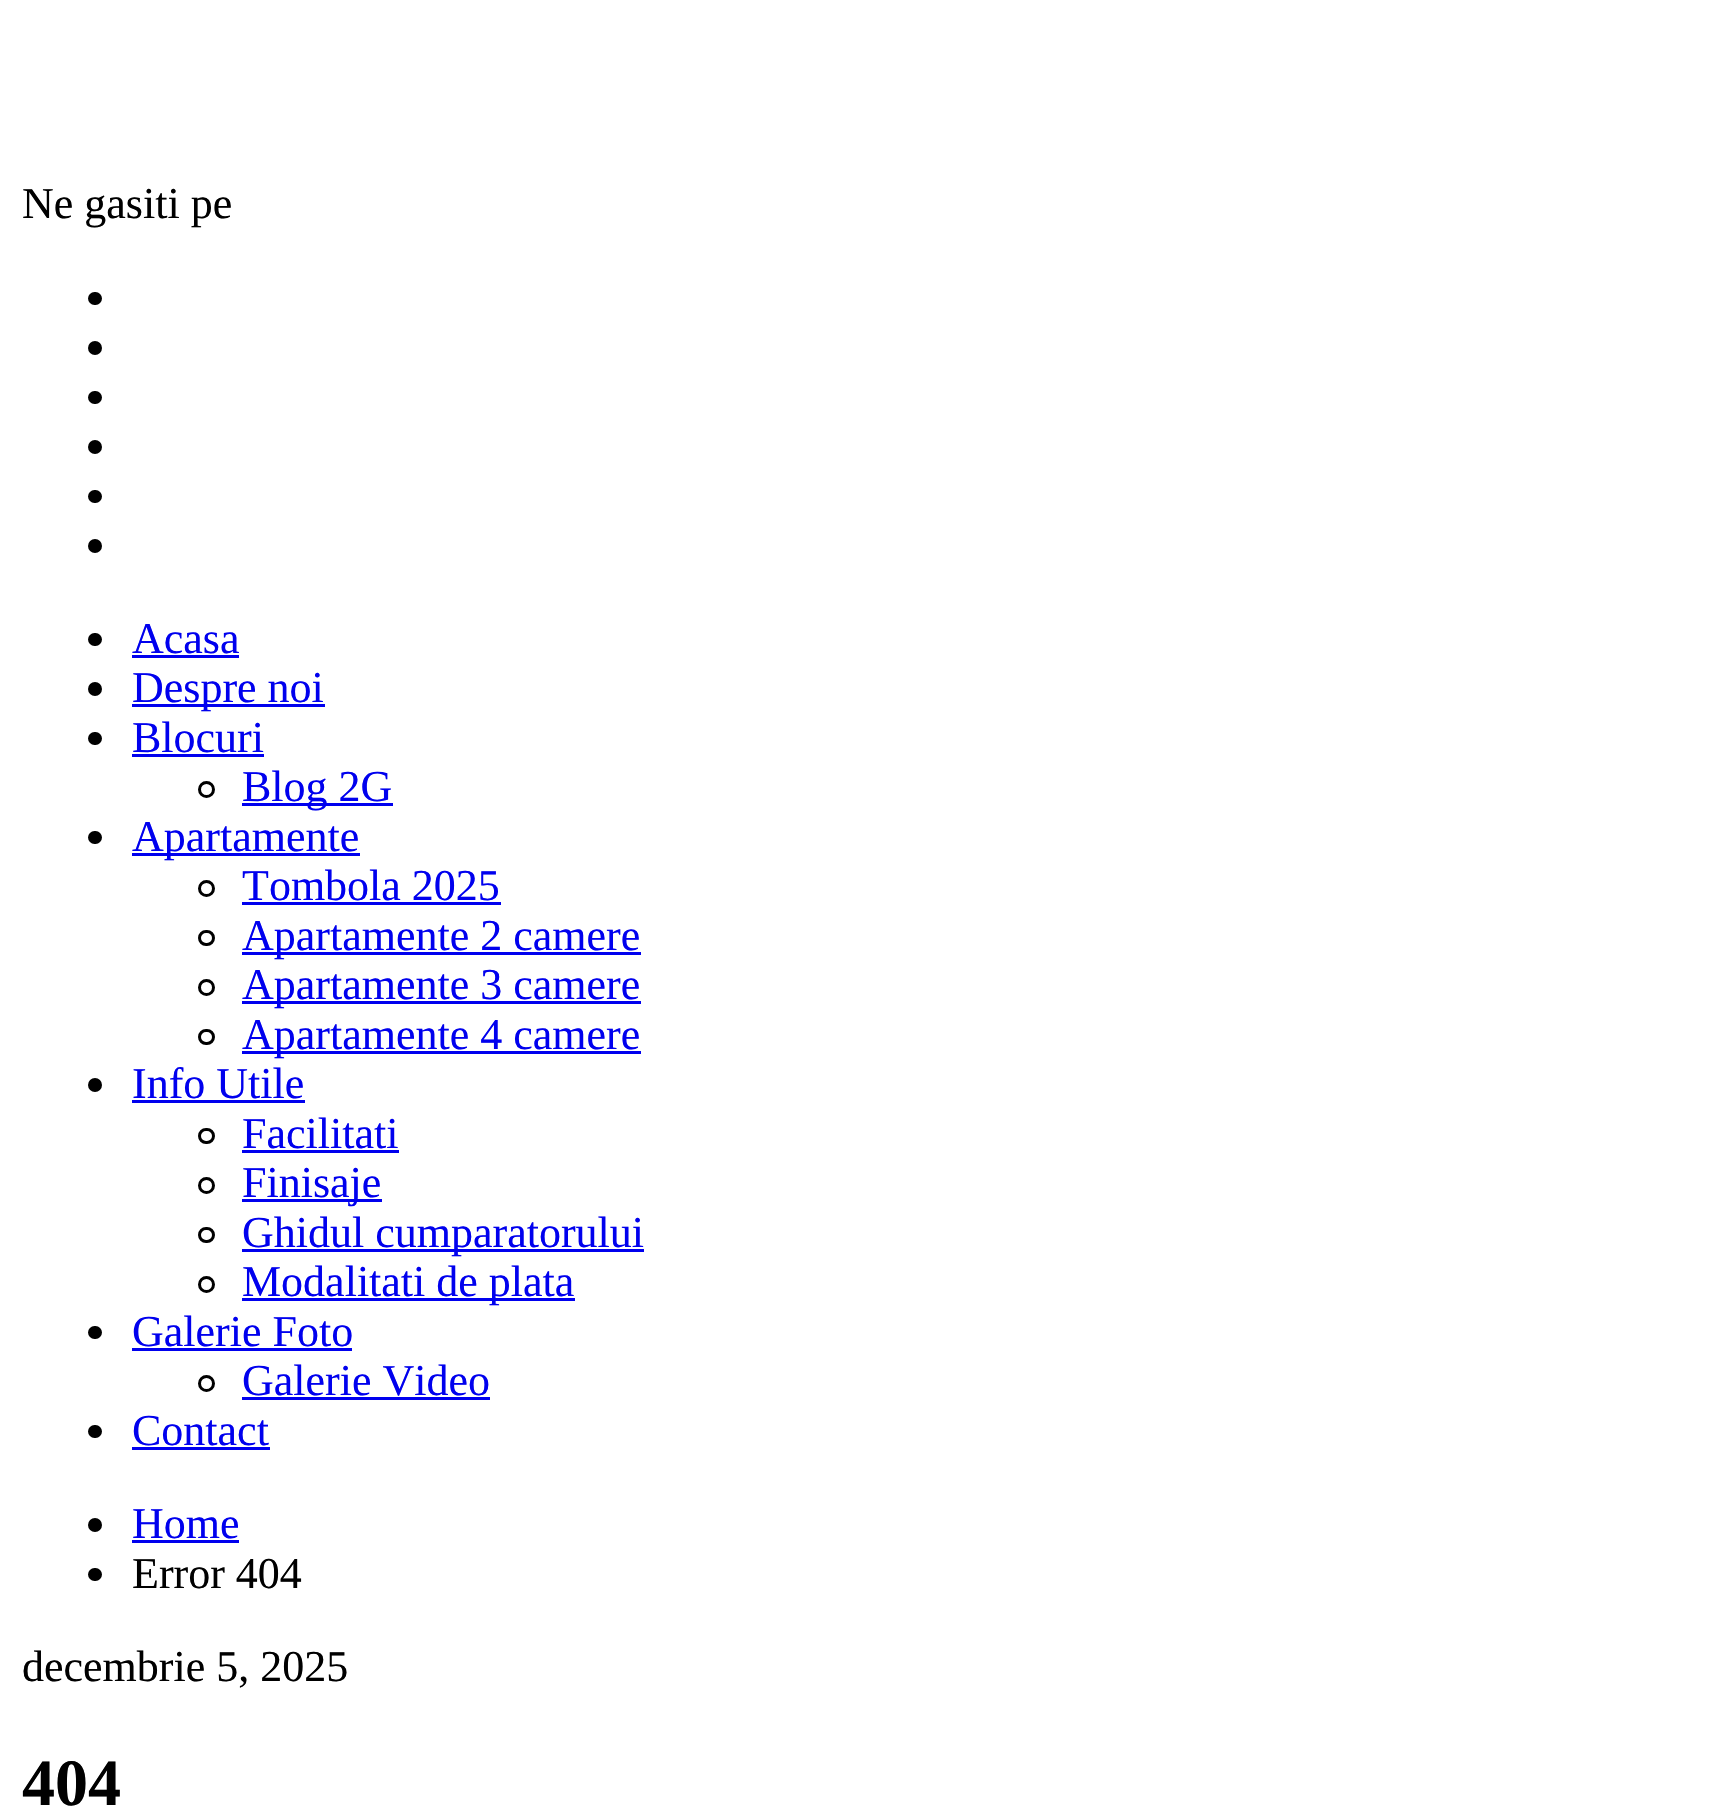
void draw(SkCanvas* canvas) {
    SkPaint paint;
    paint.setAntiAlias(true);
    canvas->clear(0xFFFFFFFF);
    SkFont font1(fontMgr->matchFamilyStyle("Liberation Serif", SkFontStyle::Normal()), 44);
    font1.setSubpixel(true);
    paint.setColor(0xFF000000);
    canvas->drawString("Ne gasiti pe", 22, 218, font1, paint);
    canvas->drawRoundRect(SkRect::MakeXYWH(88, 292, 14, 13), 6.5f, 6.5f, paint);
    canvas->drawCircle(95, 348, 7, paint);
    canvas->drawRoundRect(SkRect::MakeXYWH(88, 391, 14, 13), 6.5f, 6.5f, paint);
    canvas->drawCircle(95, 447, 7, paint);
    canvas->drawRoundRect(SkRect::MakeXYWH(88, 490, 14, 13), 6.5f, 6.5f, paint);
    canvas->drawCircle(95, 546, 7, paint);
    canvas->drawRoundRect(SkRect::MakeXYWH(88, 633, 14, 13), 6.5f, 6.5f, paint);
    paint.setColor(0xFF0000EE);
    canvas->drawString("Acasa", 132, 653, font1, paint);
    canvas->drawRect(SkRect::MakeXYWH(132, 655, 107, 3), paint);
    paint.setColor(0xFF000000);
    canvas->drawCircle(95, 689, 7, paint);
    paint.setColor(0xFF0000EE);
    canvas->drawRect(SkRect::MakeXYWH(132, 704, 193, 3), paint);
    canvas->drawString("Despre noi", 132, 702, font1, paint);
    paint.setColor(0xFF000000);
    canvas->drawRoundRect(SkRect::MakeXYWH(88, 732, 14, 13), 6.5f, 6.5f, paint);
    paint.setColor(0xFF0000EE);
    canvas->drawString("Blocuri", 132, 752, font1, paint);
    canvas->drawRect(SkRect::MakeXYWH(132, 754, 132, 3), paint);
    paint.setStyle(SkPaint::kStroke_Style);
    paint.setStrokeWidth(3);
    paint.setColor(0xFF000000);
    canvas->drawCircle(206.5f, 789.5f, 7, paint);
    paint.setStyle(SkPaint::kFill_Style);
    paint.setColor(0xFF0000EE);
    canvas->drawRect(SkRect::MakeXYWH(242, 803, 151, 3), paint);
    canvas->drawString("Blog 2G", 242, 801, font1, paint);
    paint.setColor(0xFF000000);
    canvas->drawRoundRect(SkRect::MakeXYWH(88, 831, 14, 13), 6.5f, 6.5f, paint);
    paint.setColor(0xFF0000EE);
    canvas->drawRect(SkRect::MakeXYWH(132, 853, 228, 3), paint);
    canvas->drawString("Apartamente", 132, 851, font1, paint);
    paint.setStyle(SkPaint::kStroke_Style);
    paint.setColor(0xFF000000);
    canvas->drawCircle(206.5f, 888.5f, 7, paint);
    paint.setStyle(SkPaint::kFill_Style);
    paint.setColor(0xFF0000EE);
    canvas->drawString("Tombola 2025", 242, 900, font1, paint);
    canvas->drawRect(SkRect::MakeXYWH(242, 902, 259, 3), paint);
    paint.setStyle(SkPaint::kStroke_Style);
    paint.setColor(0xFF000000);
    canvas->drawRoundRect(SkRect::MakeXYWH(199.5f, 931.5f, 14, 13), 6.5f, 6.5f, paint);
    paint.setStyle(SkPaint::kFill_Style);
    paint.setColor(0xFF0000EE);
    canvas->drawRect(SkRect::MakeXYWH(242, 952, 399, 3), paint);
    canvas->drawString("Apartamente 2 camere", 242, 950, font1, paint);
    paint.setStyle(SkPaint::kStroke_Style);
    paint.setColor(0xFF000000);
    canvas->drawCircle(206.5f, 987.5f, 7, paint);
    paint.setStyle(SkPaint::kFill_Style);
    paint.setColor(0xFF0000EE);
    canvas->drawRect(SkRect::MakeXYWH(242, 1001, 399, 3), paint);
    canvas->drawString("Apartamente 3 camere", 242, 999, font1, paint);
    paint.setStyle(SkPaint::kStroke_Style);
    paint.setColor(0xFF000000);
    canvas->drawRoundRect(SkRect::MakeXYWH(199.5f, 1030.5f, 14, 13), 6.5f, 6.5f, paint);
    paint.setStyle(SkPaint::kFill_Style);
    paint.setColor(0xFF0000EE);
    canvas->drawRect(SkRect::MakeXYWH(242, 1051, 399, 3), paint);
    canvas->drawString("Apartamente 4 camere", 242, 1049, font1, paint);
    paint.setColor(0xFF000000);
    canvas->drawCircle(95, 1085, 7, paint);
    paint.setColor(0xFF0000EE);
    canvas->drawString("Info Utile", 132, 1098, font1, paint);
    canvas->drawRect(SkRect::MakeXYWH(132, 1100, 173, 3), paint);
    paint.setStyle(SkPaint::kStroke_Style);
    paint.setColor(0xFF000000);
    canvas->drawRoundRect(SkRect::MakeXYWH(199.5f, 1129.5f, 14, 13), 6.5f, 6.5f, paint);
    paint.setStyle(SkPaint::kFill_Style);
    paint.setColor(0xFF0000EE);
    canvas->drawString("Facilitati", 242, 1148, font1, paint);
    canvas->drawRect(SkRect::MakeXYWH(242, 1150, 157, 3), paint);
    paint.setStyle(SkPaint::kStroke_Style);
    paint.setColor(0xFF000000);
    canvas->drawCircle(206.5f, 1185.5f, 7, paint);
    paint.setStyle(SkPaint::kFill_Style);
    paint.setColor(0xFF0000EE);
    canvas->drawRect(SkRect::MakeXYWH(242, 1199, 140, 3), paint);
    canvas->drawString("Finisaje", 242, 1197, font1, paint);
    paint.setStyle(SkPaint::kStroke_Style);
    paint.setColor(0xFF000000);
    canvas->drawRoundRect(SkRect::MakeXYWH(199.5f, 1228.5f, 14, 13), 6.5f, 6.5f, paint);
    paint.setStyle(SkPaint::kFill_Style);
    paint.setColor(0xFF0000EE);
    canvas->drawRect(SkRect::MakeXYWH(242, 1249, 402, 3), paint);
    canvas->drawString("Ghidul cumparatorului", 242, 1247, font1, paint);
    paint.setStyle(SkPaint::kStroke_Style);
    paint.setColor(0xFF000000);
    canvas->drawCircle(206.5f, 1284.5f, 7, paint);
    paint.setStyle(SkPaint::kFill_Style);
    paint.setColor(0xFF0000EE);
    canvas->drawRect(SkRect::MakeXYWH(242, 1298, 333, 3), paint);
    canvas->drawString("Modalitati de plata", 242, 1296, font1, paint);
    paint.setColor(0xFF000000);
    canvas->drawRoundRect(SkRect::MakeXYWH(88, 1326, 14, 13), 6.5f, 6.5f, paint);
    paint.setColor(0xFF0000EE);
    canvas->drawString("Galerie Foto", 132, 1346, font1, paint);
    canvas->drawRect(SkRect::MakeXYWH(132, 1348, 220, 3), paint);
    paint.setStyle(SkPaint::kStroke_Style);
    paint.setColor(0xFF000000);
    canvas->drawCircle(206.5f, 1383.5f, 7, paint);
    paint.setStyle(SkPaint::kFill_Style);
    paint.setColor(0xFF0000EE);
    canvas->drawString("Galerie Video", 242, 1395, font1, paint);
    canvas->drawRect(SkRect::MakeXYWH(242, 1397, 248, 3), paint);
    paint.setColor(0xFF000000);
    canvas->drawRoundRect(SkRect::MakeXYWH(88, 1425, 14, 13), 6.5f, 6.5f, paint);
    paint.setColor(0xFF0000EE);
    canvas->drawString("Contact", 132, 1445, font1, paint);
    canvas->drawRect(SkRect::MakeXYWH(132, 1447, 138, 3), paint);
    paint.setColor(0xFF000000);
    canvas->drawCircle(95, 1525, 7, paint);
    paint.setColor(0xFF0000EE);
    canvas->drawString("Home", 132, 1538, font1, paint);
    canvas->drawRect(SkRect::MakeXYWH(132, 1540, 107, 3), paint);
    paint.setColor(0xFF000000);
    canvas->drawRoundRect(SkRect::MakeXYWH(88, 1568, 14, 13), 6.5f, 6.5f, paint);
    canvas->drawString("Error 404", 132, 1588, font1, paint);
    canvas->drawString("decembrie 5, 2025", 22, 1681, font1, paint);
    SkFont font2(fontMgr->matchFamilyStyle("Liberation Serif", SkFontStyle::Bold()), 66);
    font2.setSubpixel(true);
    canvas->drawString("404", 22, 1805, font2, paint);
}
